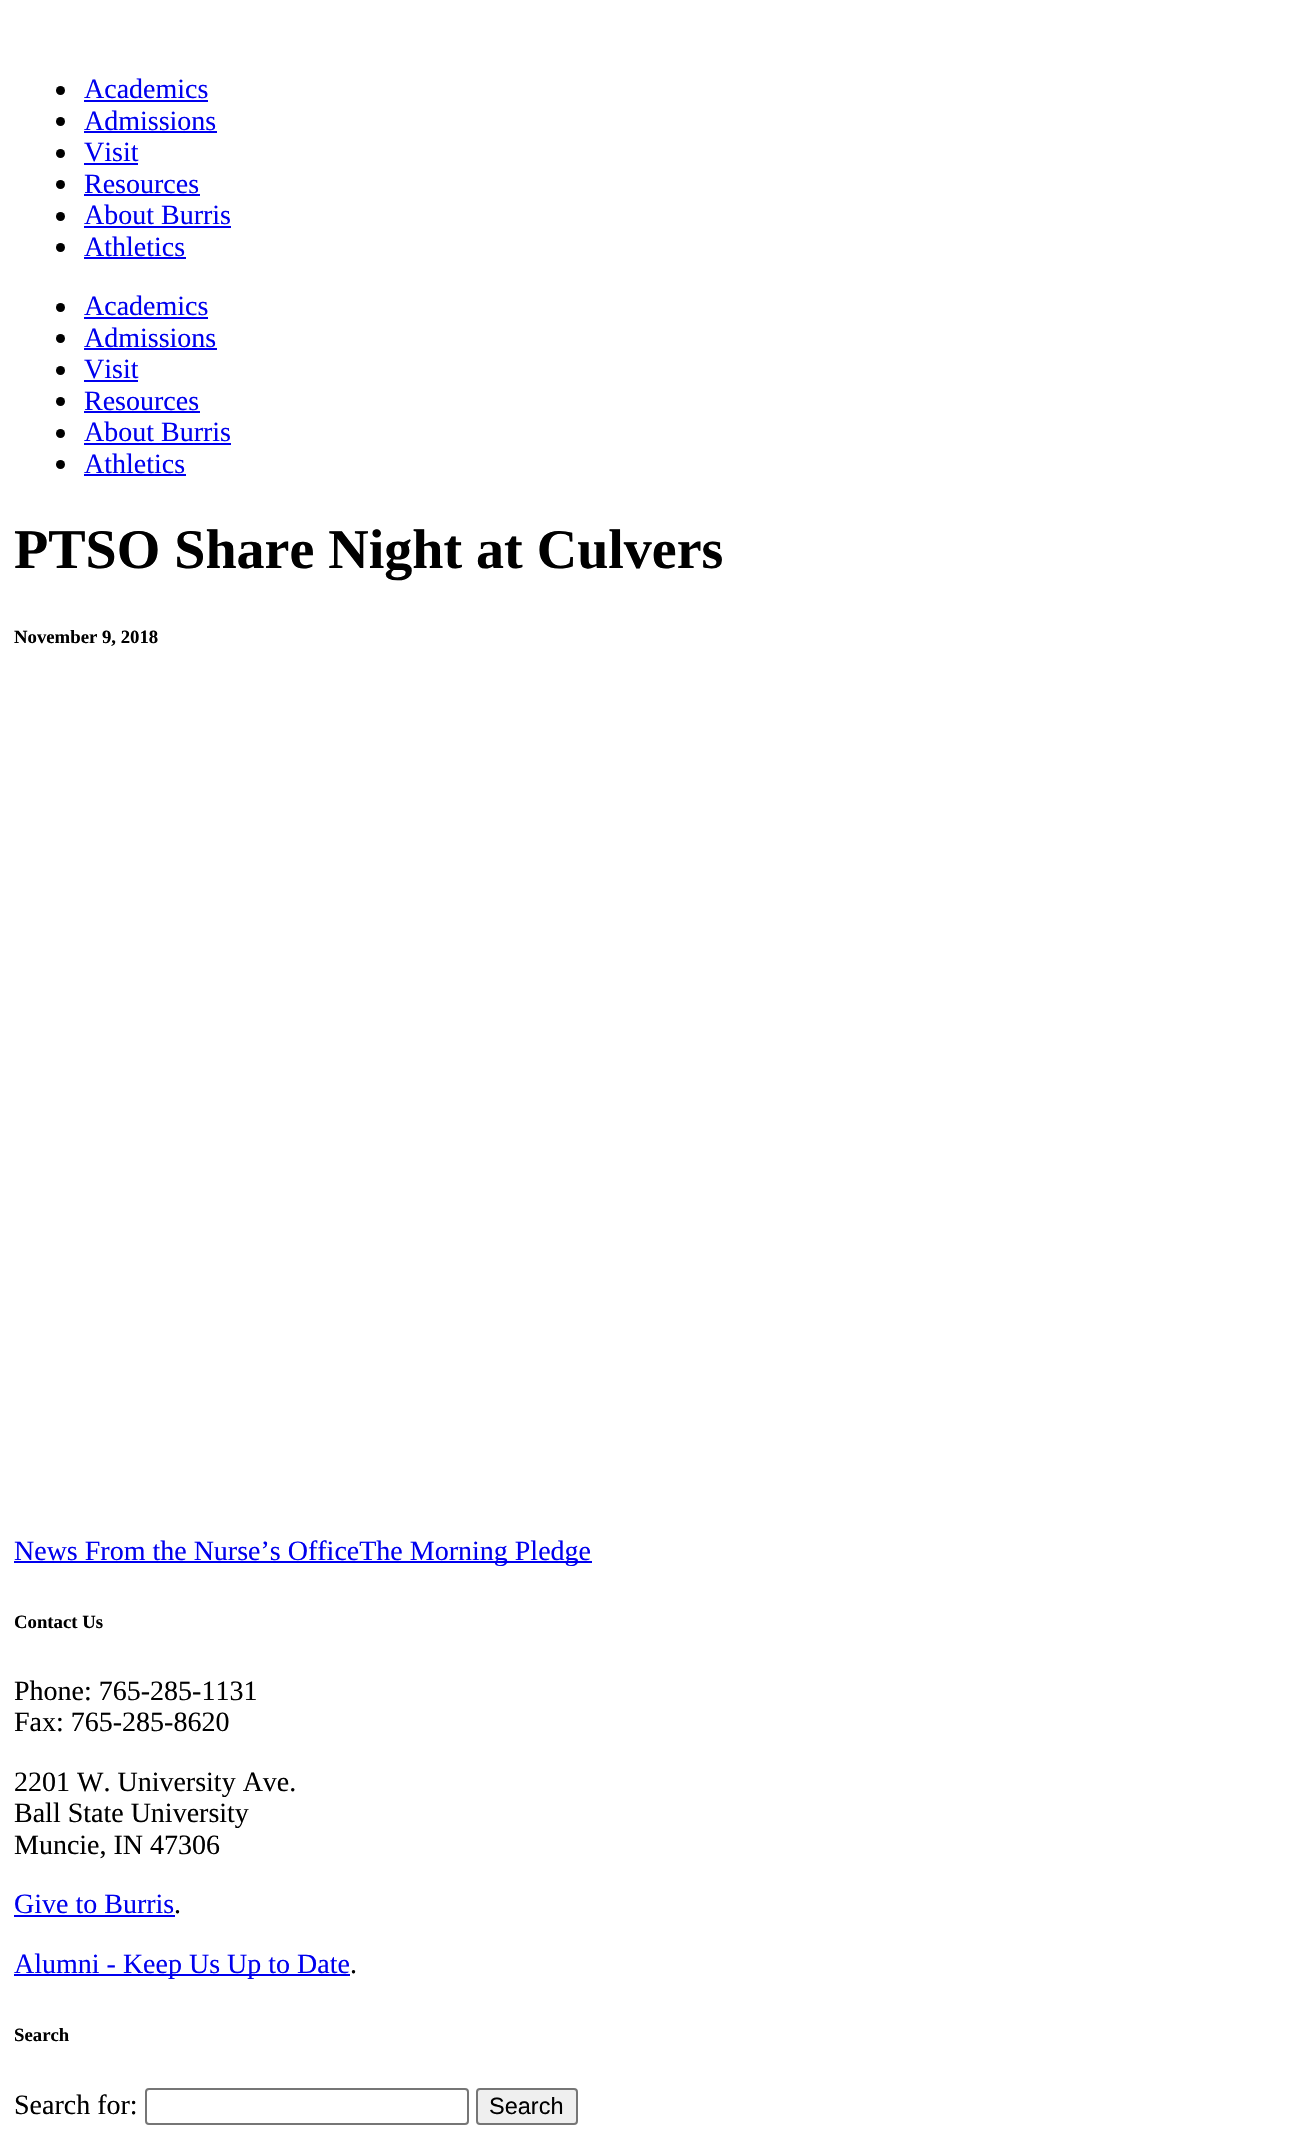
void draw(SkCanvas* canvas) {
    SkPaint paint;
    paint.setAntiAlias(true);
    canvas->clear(0xFFFFFFFF);
    paint.setColor(0xFF000000);
    canvas->drawCircle(60.5f, 90.5f, 4.5f, paint);
    SkFont font1(fontMgr->matchFamilyStyle("Liberation Serif", SkFontStyle::Normal()), 28);
    font1.setSubpixel(true);
    paint.setColor(0xFF0000EE);
    canvas->drawString("Academics", 84, 98, font1, paint);
    canvas->drawRect(SkRect::MakeXYWH(84, 100, 124, 2), paint);
    paint.setColor(0xFF000000);
    canvas->drawCircle(60.5f, 121.5f, 4.5f, paint);
    paint.setColor(0xFF0000EE);
    canvas->drawString("Admissions", 84, 130, font1, paint);
    canvas->drawRect(SkRect::MakeXYWH(84, 131, 133, 2), paint);
    paint.setColor(0xFF000000);
    canvas->drawCircle(60.5f, 153.5f, 4.5f, paint);
    paint.setColor(0xFF0000EE);
    canvas->drawString("Visit", 84, 161, font1, paint);
    canvas->drawRect(SkRect::MakeXYWH(84, 163, 54, 2), paint);
    paint.setColor(0xFF000000);
    canvas->drawCircle(60.5f, 184.5f, 4.5f, paint);
    paint.setColor(0xFF0000EE);
    canvas->drawString("Resources", 84, 193, font1, paint);
    canvas->drawRect(SkRect::MakeXYWH(84, 194, 116, 2), paint);
    paint.setColor(0xFF000000);
    canvas->drawCircle(60.5f, 216.5f, 4.5f, paint);
    paint.setColor(0xFF0000EE);
    canvas->drawString("About Burris", 84, 224, font1, paint);
    canvas->drawRect(SkRect::MakeXYWH(84, 226, 147, 2), paint);
    paint.setColor(0xFF000000);
    canvas->drawCircle(60.5f, 247.5f, 4.5f, paint);
    paint.setColor(0xFF0000EE);
    canvas->drawString("Athletics", 84, 256, font1, paint);
    canvas->drawRect(SkRect::MakeXYWH(84, 257, 102, 2), paint);
    paint.setColor(0xFF000000);
    canvas->drawCircle(60.5f, 307.5f, 4.5f, paint);
    paint.setColor(0xFF0000EE);
    canvas->drawString("Academics", 84, 315, font1, paint);
    canvas->drawRect(SkRect::MakeXYWH(84, 317, 124, 2), paint);
    paint.setColor(0xFF000000);
    canvas->drawCircle(60.5f, 338.5f, 4.5f, paint);
    paint.setColor(0xFF0000EE);
    canvas->drawString("Admissions", 84, 347, font1, paint);
    canvas->drawRect(SkRect::MakeXYWH(84, 348, 133, 2), paint);
    paint.setColor(0xFF000000);
    canvas->drawCircle(60.5f, 370.5f, 4.5f, paint);
    paint.setColor(0xFF0000EE);
    canvas->drawString("Visit", 84, 378, font1, paint);
    canvas->drawRect(SkRect::MakeXYWH(84, 380, 54, 2), paint);
    paint.setColor(0xFF000000);
    canvas->drawCircle(60.5f, 401.5f, 4.5f, paint);
    paint.setColor(0xFF0000EE);
    canvas->drawString("Resources", 84, 410, font1, paint);
    canvas->drawRect(SkRect::MakeXYWH(84, 411, 116, 2), paint);
    paint.setColor(0xFF000000);
    canvas->drawCircle(60.5f, 433.5f, 4.5f, paint);
    paint.setColor(0xFF0000EE);
    canvas->drawString("About Burris", 84, 441, font1, paint);
    canvas->drawRect(SkRect::MakeXYWH(84, 443, 147, 2), paint);
    paint.setColor(0xFF000000);
    canvas->drawCircle(60.5f, 464.5f, 4.5f, paint);
    paint.setColor(0xFF0000EE);
    canvas->drawString("Athletics", 84, 473, font1, paint);
    canvas->drawRect(SkRect::MakeXYWH(84, 474, 102, 2), paint);
    SkFont font2(fontMgr->matchFamilyStyle("Liberation Serif", SkFontStyle::Bold()), 56);
    font2.setSubpixel(true);
    paint.setColor(0xFF000000);
    canvas->drawString("PTSO Share Night at Culvers", 14, 568, font2, paint);
    SkFont font3(fontMgr->matchFamilyStyle("Liberation Serif", SkFontStyle::Bold()), 18.75f);
    font3.setSubpixel(true);
    canvas->drawString("November 9, 2018", 14, 643, font3, paint);
    paint.setColor(0xFF0000EE);
    canvas->drawRect(SkRect::MakeXYWH(14, 1561, 578, 2), paint);
    canvas->drawString("News From the Nurse’s OfficeThe Morning Pledge", 14, 1560, font1, paint);
    paint.setColor(0xFF000000);
    canvas->drawString("Contact Us", 14, 1628, font3, paint);
    canvas->drawString("Phone: 765-285-1131", 14, 1700, font1, paint);
    canvas->drawString("Fax: 765-285-8620", 14, 1731, font1, paint);
    canvas->drawString("2201 W. University Ave.", 14, 1791, font1, paint);
    canvas->drawString("Ball State University", 14, 1822, font1, paint);
    canvas->drawString("Muncie, IN 47306", 14, 1854, font1, paint);
    paint.setColor(0xFF0000EE);
    canvas->drawString("Give to Burris", 14, 1913, font1, paint);
    canvas->drawRect(SkRect::MakeXYWH(14, 1915, 161, 2), paint);
    paint.setColor(0xFF000000);
    canvas->drawString(".", 174, 1913, font1, paint);
    paint.setColor(0xFF0000EE);
    canvas->drawRect(SkRect::MakeXYWH(14, 1974, 336, 2), paint);
    canvas->drawString("Alumni - Keep Us Up to Date", 14, 1973, font1, paint);
    paint.setColor(0xFF000000);
    canvas->drawString(".", 350, 1973, font1, paint);
    canvas->drawString("Search", 14, 2041, font3, paint);
    canvas->drawString("Search for:", 14, 2114, font1, paint);
    paint.setStyle(SkPaint::kStroke_Style);
    paint.setStrokeWidth(2);
    paint.setColor(0xFF767676);
    canvas->drawRoundRect(SkRect::MakeXYWH(146, 2089, 322, 35), 3, 3, paint);
    paint.setStyle(SkPaint::kFill_Style);
    paint.setColor(0xFFEFEFEF);
    canvas->drawRoundRect(SkRect::MakeXYWH(477, 2089, 100, 35), 3, 3, paint);
    paint.setStyle(SkPaint::kStroke_Style);
    paint.setColor(0xFF767676);
    canvas->drawRoundRect(SkRect::MakeXYWH(477, 2089, 100, 35), 3, 3, paint);
    SkFont font4(fontMgr->matchFamilyStyle("Liberation Sans", SkFontStyle::Normal()), 23.5f);
    font4.setSubpixel(true);
    paint.setStyle(SkPaint::kFill_Style);
    paint.setColor(0xFF000000);
    canvas->drawString("Search", 489, 2114, font4, paint);
}
